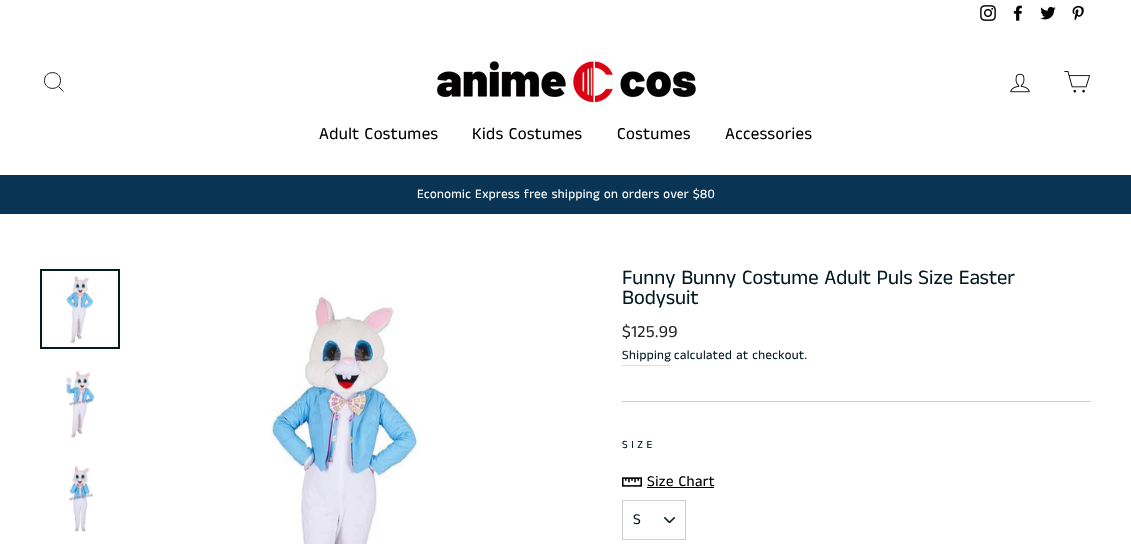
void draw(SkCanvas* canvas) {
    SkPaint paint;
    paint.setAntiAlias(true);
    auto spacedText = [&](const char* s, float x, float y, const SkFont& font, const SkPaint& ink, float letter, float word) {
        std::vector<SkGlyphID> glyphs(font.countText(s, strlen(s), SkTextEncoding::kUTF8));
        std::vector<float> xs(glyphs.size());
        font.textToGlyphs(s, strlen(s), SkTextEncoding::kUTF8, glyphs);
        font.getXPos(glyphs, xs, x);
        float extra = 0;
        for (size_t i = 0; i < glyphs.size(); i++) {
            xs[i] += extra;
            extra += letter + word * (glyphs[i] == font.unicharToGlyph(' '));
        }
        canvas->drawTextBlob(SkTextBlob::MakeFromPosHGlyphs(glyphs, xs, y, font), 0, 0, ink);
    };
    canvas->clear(0xFFFFFFFF);
    canvas->drawImageRect(SkImages::DeferredFromEncodedData(SkData::MakeFromFileName("img1.png")), SkRect::MakeXYWH(980, 5, 16, 16), SkSamplingOptions());
    canvas->drawImageRect(SkImages::DeferredFromEncodedData(SkData::MakeFromFileName("img2.png")), SkRect::MakeXYWH(1013, 5, 9, 16), SkSamplingOptions());
    canvas->drawImageRect(SkImages::DeferredFromEncodedData(SkData::MakeFromFileName("img3.png")), SkRect::MakeXYWH(1040, 6, 16, 14), SkSamplingOptions());
    canvas->drawImageRect(SkImages::DeferredFromEncodedData(SkData::MakeFromFileName("img4.png")), SkRect::MakeXYWH(1072, 5, 12, 16), SkSamplingOptions());
    paint.setStyle(SkPaint::kStroke_Style);
    paint.setStrokeWidth(0.9f);
    paint.setColor(0xFF000000);
    canvas->drawPath(SkPathBuilder().moveTo(60.5f, 80.5f).cubicTo(60.5f, 91, 44.5f, 91, 44.5f, 80.5f).cubicTo(44.5f, 70, 60.5f, 70, 60.5f, 80.5f).close().moveTo(63.5f, 91.5f).lineTo(58.5f, 86.5f).detach(), paint);
    canvas->drawImageRect(SkImages::DeferredFromEncodedData(SkData::MakeFromFileName("img5.png")), SkRect::MakeXYWH(437, 61, 259, 42), SkSamplingOptions());
    canvas->drawImageRect(SkImages::DeferredFromEncodedData(SkData::MakeFromFileName("img6.png")), SkRect::MakeXYWH(1010, 73, 20, 20), SkSamplingOptions());
    canvas->drawImageRect(SkImages::DeferredFromEncodedData(SkData::MakeFromFileName("img7.png")), SkRect::MakeXYWH(1064, 71, 27, 22), SkSamplingOptions());
    SkFont font1(fontMgr->matchFamilyStyle("Anek Tamil", SkFontStyle::Normal()), 17);
    font1.setSubpixel(true);
    paint.setStyle(SkPaint::kFill_Style);
    spacedText("Adult Costumes", 319, 139, font1, paint, 0.4f, 0);
    spacedText("Kids Costumes", 472, 139, font1, paint, 0.4f, 0);
    spacedText("Costumes", 617, 139, font1, paint, 0.4f, 0);
    spacedText("Accessories", 725, 139, font1, paint, 0.4f, 0);
    paint.setColor(0xFF093453);
    canvas->drawRect(SkRect::MakeXYWH(0, 175, 1131, 39), paint);
    SkFont font2(fontMgr->matchFamilyStyle("Anek Tamil", SkFontStyle::Normal()), 12.75f);
    font2.setSubpixel(true);
    paint.setColor(0xFFFFFFFF);
    spacedText("Economic Express free shipping on orders over $80", 417, 198, font2, paint, 0.4f, 0);
    paint.setStyle(SkPaint::kStroke_Style);
    paint.setStrokeWidth(2);
    paint.setColor(0xFF031A21);
    canvas->drawRect(SkRect::MakeXYWH(41, 270, 78, 78), paint);
    canvas->drawImageRect(SkImages::DeferredFromEncodedData(SkData::MakeFromFileName("img8.png")), SkRect::MakeXYWH(66, 276, 28, 68), SkSamplingOptions());
    canvas->drawImageRect(SkImages::DeferredFromEncodedData(SkData::MakeFromFileName("img9.png")), SkRect::MakeXYWH(66, 370, 30, 69), SkSamplingOptions());
    canvas->drawImageRect(SkImages::DeferredFromEncodedData(SkData::MakeFromFileName("img10.png")), SkRect::MakeXYWH(69, 466, 24, 66), SkSamplingOptions());
    canvas->drawImageRect(SkImages::DeferredFromEncodedData(SkData::MakeFromFileName("img11.png")), SkRect::MakeXYWH(269, 294, 151, 250), SkSamplingOptions());
    SkFont font3(fontMgr->matchFamilyStyle("Anek Tamil", SkFontStyle::Normal()), 20.6f);
    font3.setSubpixel(true);
    paint.setStyle(SkPaint::kFill_Style);
    canvas->drawString("Funny Bunny Costume Adult Puls Size Easter", 622, 284, font3, paint);
    canvas->drawString("Bodysuit", 622, 304, font3, paint);
    paint.setColor(0xFF262929);
    spacedText("$125.99", 622, 337, font1, paint, 0.4f, 0);
    paint.setColor(0xFFD9DDDE);
    canvas->drawRect(SkRect::MakeXYWH(622, 365, 48, 1), paint);
    paint.setColor(0xFF031A21);
    spacedText("Shipping", 622, 359, font2, paint, 0.4f, 0);
    spacedText("calculated at checkout.", 674, 359, font2, paint, 0.4f, 0);
    paint.setColor(0xFFCFCFCF);
    canvas->drawRect(SkRect::MakeXYWH(622, 401, 469, 1), paint);
    SkFont font4(fontMgr->matchFamilyStyle("Anek Tamil", SkFontStyle::Normal()), 11);
    font4.setSubpixel(true);
    paint.setColor(0xFF031A21);
    spacedText("SIZE", 622, 448, font4, paint, 3.5f, 0);
    canvas->drawImageRect(SkImages::DeferredFromEncodedData(SkData::MakeFromFileName("img12.png")), SkRect::MakeXYWH(622, 477, 20, 10), SkSamplingOptions());
    SkFont font5(fontMgr->matchFamilyStyle("Anek Tamil", SkFontStyle::Normal()), 15);
    font5.setSubpixel(true);
    paint.setColor(0xFF000000);
    spacedText("Size Chart", 647, 486, font5, paint, 0.4f, 0);
    canvas->drawRect(SkRect::MakeXYWH(647, 487, 67, 1), paint);
    canvas->drawImageRect(SkImages::DeferredFromEncodedData(SkData::MakeFromFileName("img13.png")), SkRect::MakeXYWH(664, 517, 11, 6), SkSamplingOptions());
    paint.setStyle(SkPaint::kStroke_Style);
    paint.setStrokeWidth(1);
    paint.setColor(0xFFCFCFCF);
    canvas->drawRect(SkRect::MakeXYWH(622.5f, 500.5f, 63, 39), paint);
    paint.setStyle(SkPaint::kFill_Style);
    paint.setColor(0xFF031A21);
    spacedText("S", 633, 524, font5, paint, 0.4f, 0);
}
